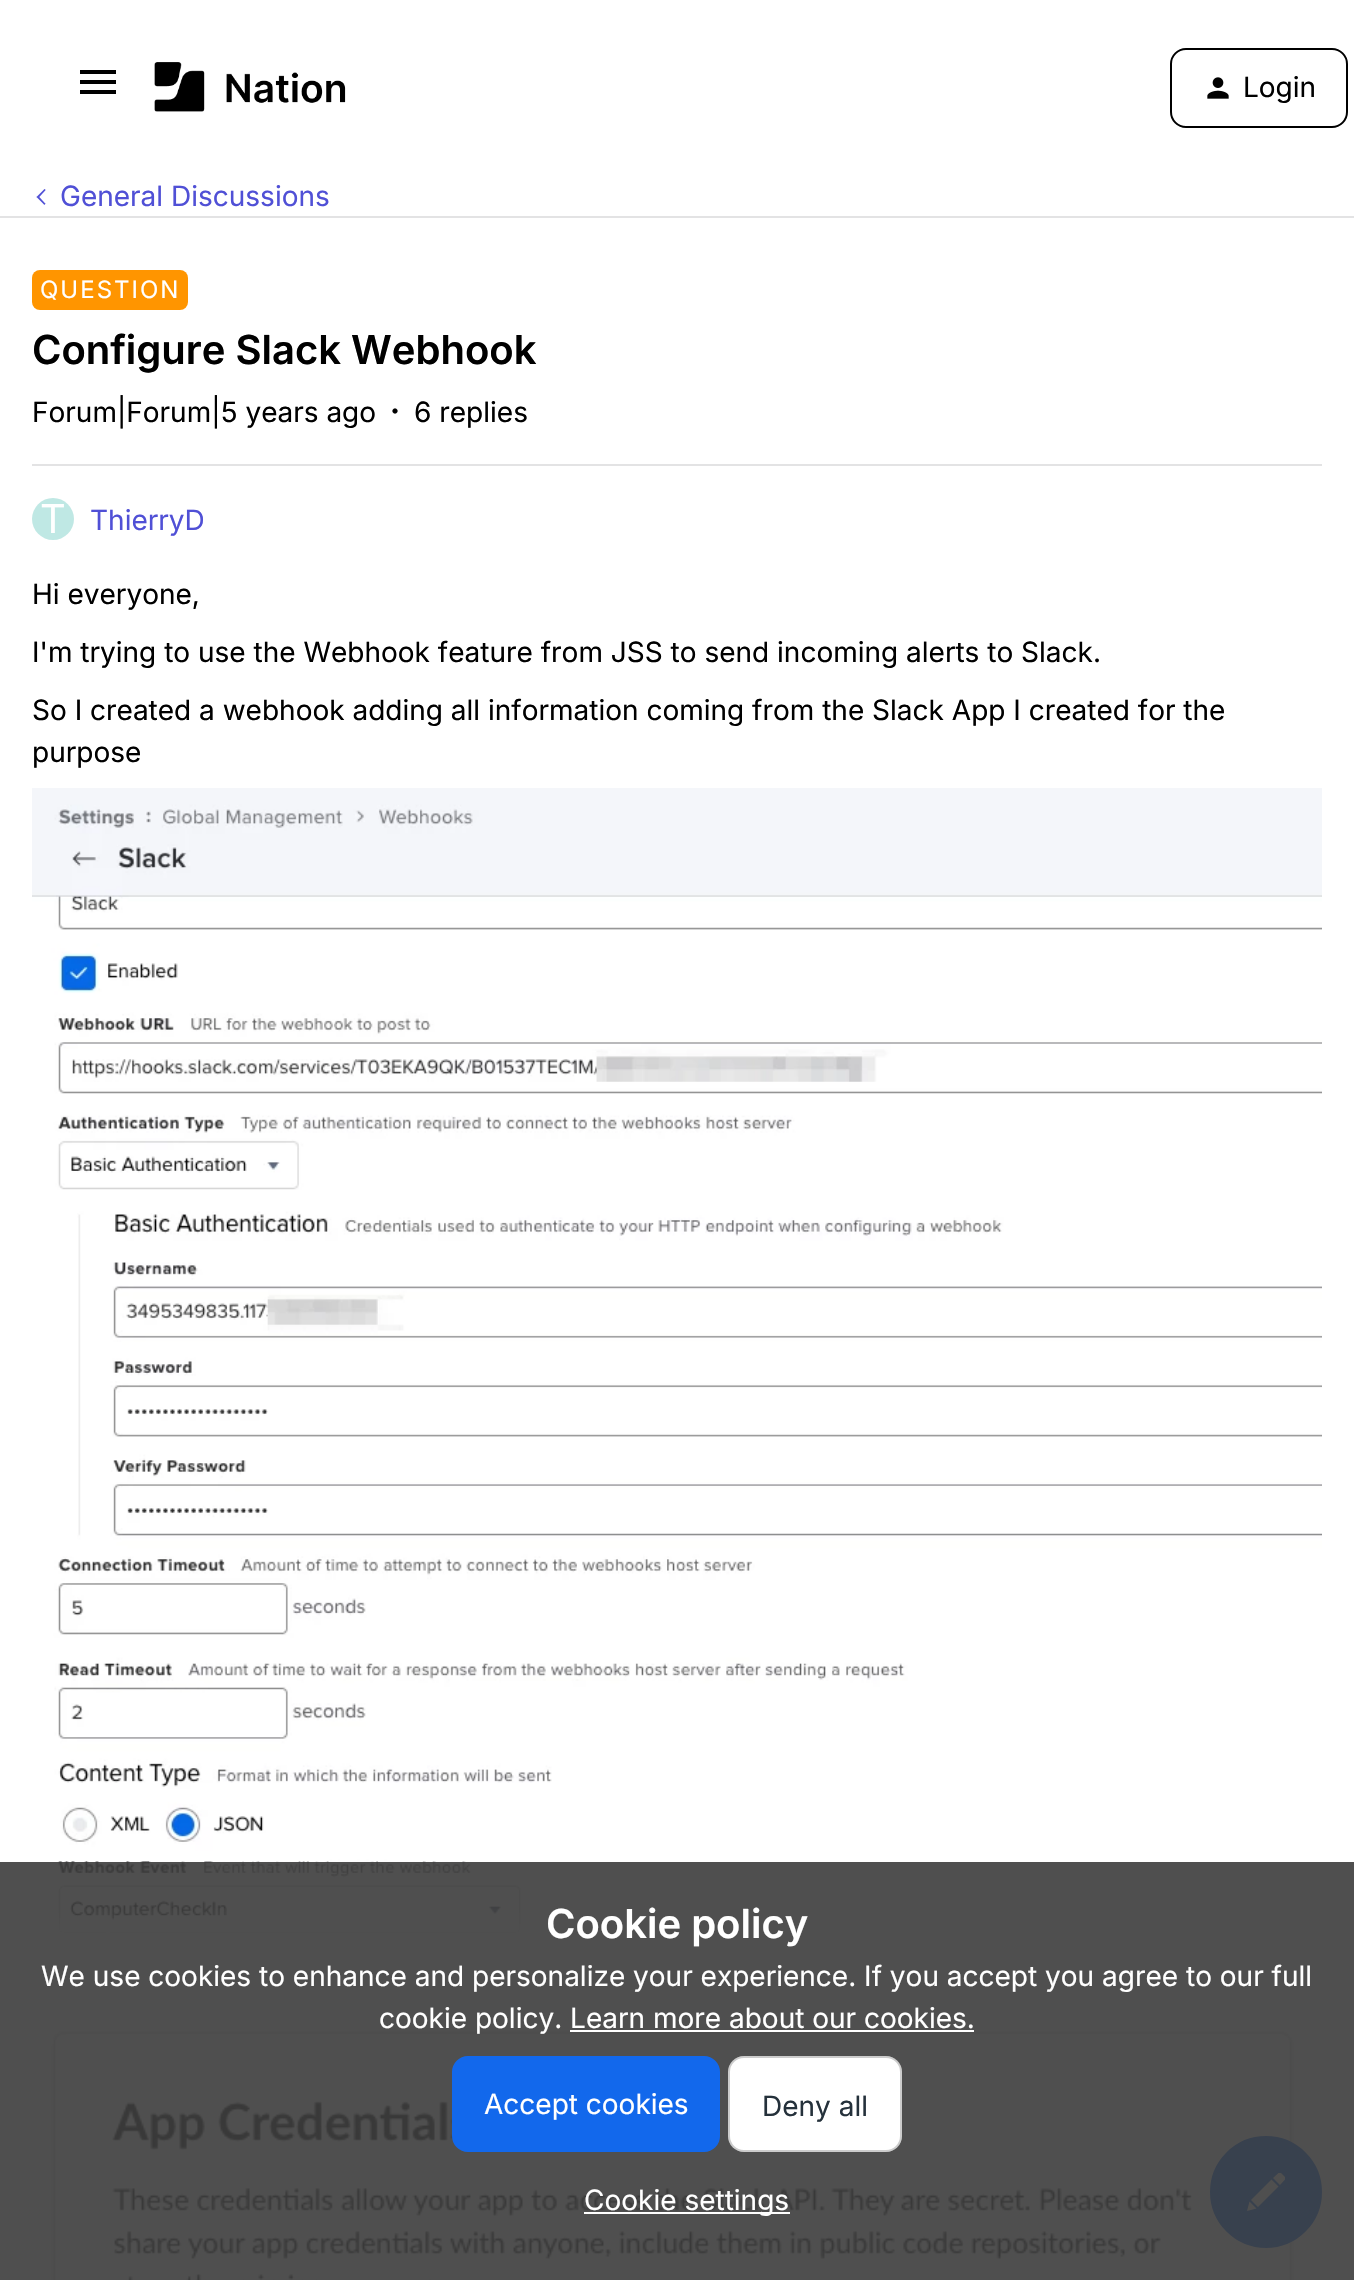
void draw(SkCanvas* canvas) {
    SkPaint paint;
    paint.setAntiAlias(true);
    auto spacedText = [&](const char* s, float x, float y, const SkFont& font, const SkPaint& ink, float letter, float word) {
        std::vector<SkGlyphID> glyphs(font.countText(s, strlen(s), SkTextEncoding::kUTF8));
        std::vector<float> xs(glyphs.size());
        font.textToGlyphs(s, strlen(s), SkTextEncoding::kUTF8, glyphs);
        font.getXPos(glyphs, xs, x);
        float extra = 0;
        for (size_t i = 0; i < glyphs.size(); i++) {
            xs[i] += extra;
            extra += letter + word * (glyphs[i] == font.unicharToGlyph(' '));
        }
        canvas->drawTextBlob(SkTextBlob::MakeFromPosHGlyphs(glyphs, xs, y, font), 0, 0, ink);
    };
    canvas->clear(0xFFFFFFFF);
    paint.setColor(0xFF000000);
    canvas->drawPath(SkPathBuilder().moveTo(80, 94).lineTo(116, 94).lineTo(116, 90).lineTo(80, 90).close().moveTo(80, 84).lineTo(116, 84).lineTo(116, 80).lineTo(80, 80).close().moveTo(80, 70).lineTo(80, 74).lineTo(116, 74).lineTo(116, 70).close().detach(), paint);
    canvas->drawImageRect(SkImages::DeferredFromEncodedData(SkData::MakeFromFileName("img1.png")), SkRect::MakeXYWH(154, 62, 192, 50), SkSamplingOptions());
    paint.setStyle(SkPaint::kStroke_Style);
    paint.setStrokeWidth(2);
    canvas->drawRoundRect(SkRect::MakeXYWH(1171, 49, 176, 78), 15, 15, paint);
    canvas->drawImageRect(SkImages::DeferredFromEncodedData(SkData::MakeFromFileName("img2.png")), SkRect::MakeXYWH(1207, 77, 22, 22), SkSamplingOptions());
    SkFont font1(fontMgr->matchFamilyStyle("Inter", SkFontStyle::Normal()), 28);
    font1.setSubpixel(true);
    paint.setStyle(SkPaint::kFill_Style);
    canvas->drawString("Login", 1243, 97, font1, paint);
    canvas->drawImageRect(SkImages::DeferredFromEncodedData(SkData::MakeFromFileName("img3.png")), SkRect::MakeXYWH(36, 189, 10, 16), SkSamplingOptions());
    paint.setColor(0xFF5050D6);
    canvas->drawString("General Discussions", 60, 206, font1, paint);
    paint.setColor(0xFFE3E3E4);
    canvas->drawRect(SkRect::MakeXYWH(0, 216, 1354, 2), paint);
    paint.setColor(0xFFFF9500);
    canvas->drawRoundRect(SkRect::MakeXYWH(32, 270, 156, 40), 8, 8, paint);
    SkFont font2(fontMgr->matchFamilyStyle("Inter", SkFontStyle::Normal()), 24);
    font2.setSubpixel(true);
    paint.setColor(0xFFFFFFFF);
    spacedText("QUESTION", 40, 298, font2, paint, 2, 0);
    SkFont font3(fontMgr->matchFamilyStyle("Inter", SkFontStyle(600, SkFontStyle::kNormal_Width, SkFontStyle::kUpright_Slant)), 40);
    font3.setSubpixel(true);
    paint.setColor(0xFF000000);
    canvas->drawString("Configure Slack Webhook", 32, 364, font3, paint);
    canvas->drawString("Forum|Forum|5 years ago", 32, 422, font1, paint);
    canvas->drawImageRect(SkImages::DeferredFromEncodedData(SkData::MakeFromFileName("img4.png")), SkRect::MakeXYWH(392, 408, 6, 6), SkSamplingOptions());
    canvas->drawString("6 replies", 414, 422, font1, paint);
    paint.setColor(0xFFE3E3E4);
    canvas->drawRect(SkRect::MakeXYWH(32, 464, 1290, 2), paint);
    paint.setColor(0xFFBFE8E4);
    canvas->drawCircle(53, 519, 21, paint);
    SkFont font4(fontMgr->matchFamilyStyle("Inter", SkFontStyle::Normal()), 40);
    font4.setSubpixel(true);
    paint.setColor(0xFFFFFFFF);
    canvas->drawString("T", 40, 533, font4, paint);
    paint.setColor(0xFF5050D6);
    canvas->drawString("ThierryD", 90, 530, font1, paint);
    paint.setColor(0xFF000000);
    canvas->drawString("Hi everyone,", 32, 604, font1, paint);
    canvas->drawString("I'm trying to use the Webhook feature from JSS to send incoming alerts to Slack.", 32, 662, font1, paint);
    canvas->drawString("So I created a webhook adding all information coming from the Slack App I created for the", 32, 720, font1, paint);
    canvas->drawString("purpose", 32, 762, font1, paint);
    canvas->drawImageRect(SkImages::DeferredFromEncodedData(SkData::MakeFromFileName("img5.png")), SkRect::MakeXYWH(32, 788, 1290, 1146), SkSamplingOptions());
    canvas->drawImageRect(SkImages::DeferredFromEncodedData(SkData::MakeFromFileName("img6.png")), SkRect::MakeXYWH(32, 2016, 1290, 264), SkSamplingOptions());
    paint.setColor(0xFF1268EC);
    canvas->drawCircle(1266, 2192, 55, paint);
    paint.setStyle(SkPaint::kStroke_Style);
    canvas->drawCircle(1266, 2192, 55, paint);
    paint.setStyle(SkPaint::kFill_Style);
    paint.setColor(0xFFFFFFFF);
    canvas->drawPath(SkPathBuilder().moveTo(1251, 2200).lineTo(1271.5f, 2179.5f).lineTo(1278.5f, 2186.5f).lineTo(1258, 2207).close().moveTo(1278.5f, 2173).lineTo(1281, 2173).lineTo(1285, 2177).lineTo(1285, 2179.5f).lineTo(1280, 2185).lineTo(1273, 2178).close().moveTo(1247, 2211).lineTo(1249.5f, 2201.5f).lineTo(1256.5f, 2208.5f).close().detach(), paint);
    paint.setColor(0xE63C3C3C);
    canvas->drawRect(SkRect::MakeXYWH(0, 1862, 1354, 418), paint);
    paint.setColor(0xFFFFFFFF);
    canvas->drawString("Cookie policy", 546, 1938, font3, paint);
    canvas->drawString("We use cookies to enhance and personalize your experience. If you accept you agree to our full", 41, 1986, font1, paint);
    canvas->drawString("cookie policy. Learn more about our cookies.", 379, 2028, font1, paint);
    canvas->drawRect(SkRect::MakeXYWH(570, 2030, 404, 2), paint);
    paint.setColor(0xFF1268EC);
    canvas->drawRoundRect(SkRect::MakeXYWH(453, 2057, 266, 94), 15, 15, paint);
    paint.setStyle(SkPaint::kStroke_Style);
    canvas->drawRoundRect(SkRect::MakeXYWH(453, 2057, 266, 94), 15, 15, paint);
    paint.setStyle(SkPaint::kFill_Style);
    paint.setColor(0xFFFFFFFF);
    canvas->drawString("Accept cookies", 484, 2114, font1, paint);
    canvas->drawRoundRect(SkRect::MakeXYWH(728, 2056, 174, 96), 16, 16, paint);
    paint.setStyle(SkPaint::kStroke_Style);
    paint.setColor(0x33000000);
    canvas->drawRoundRect(SkRect::MakeXYWH(729, 2057, 172, 94), 15, 15, paint);
    paint.setStyle(SkPaint::kFill_Style);
    paint.setColor(0xFF25313B);
    canvas->drawString("Deny all", 762, 2116, font1, paint);
    paint.setColor(0xFFFFFFFF);
    canvas->drawRect(SkRect::MakeXYWH(584, 2212, 206, 2), paint);
    canvas->drawString("Cookie settings", 584, 2210, font1, paint);
}
